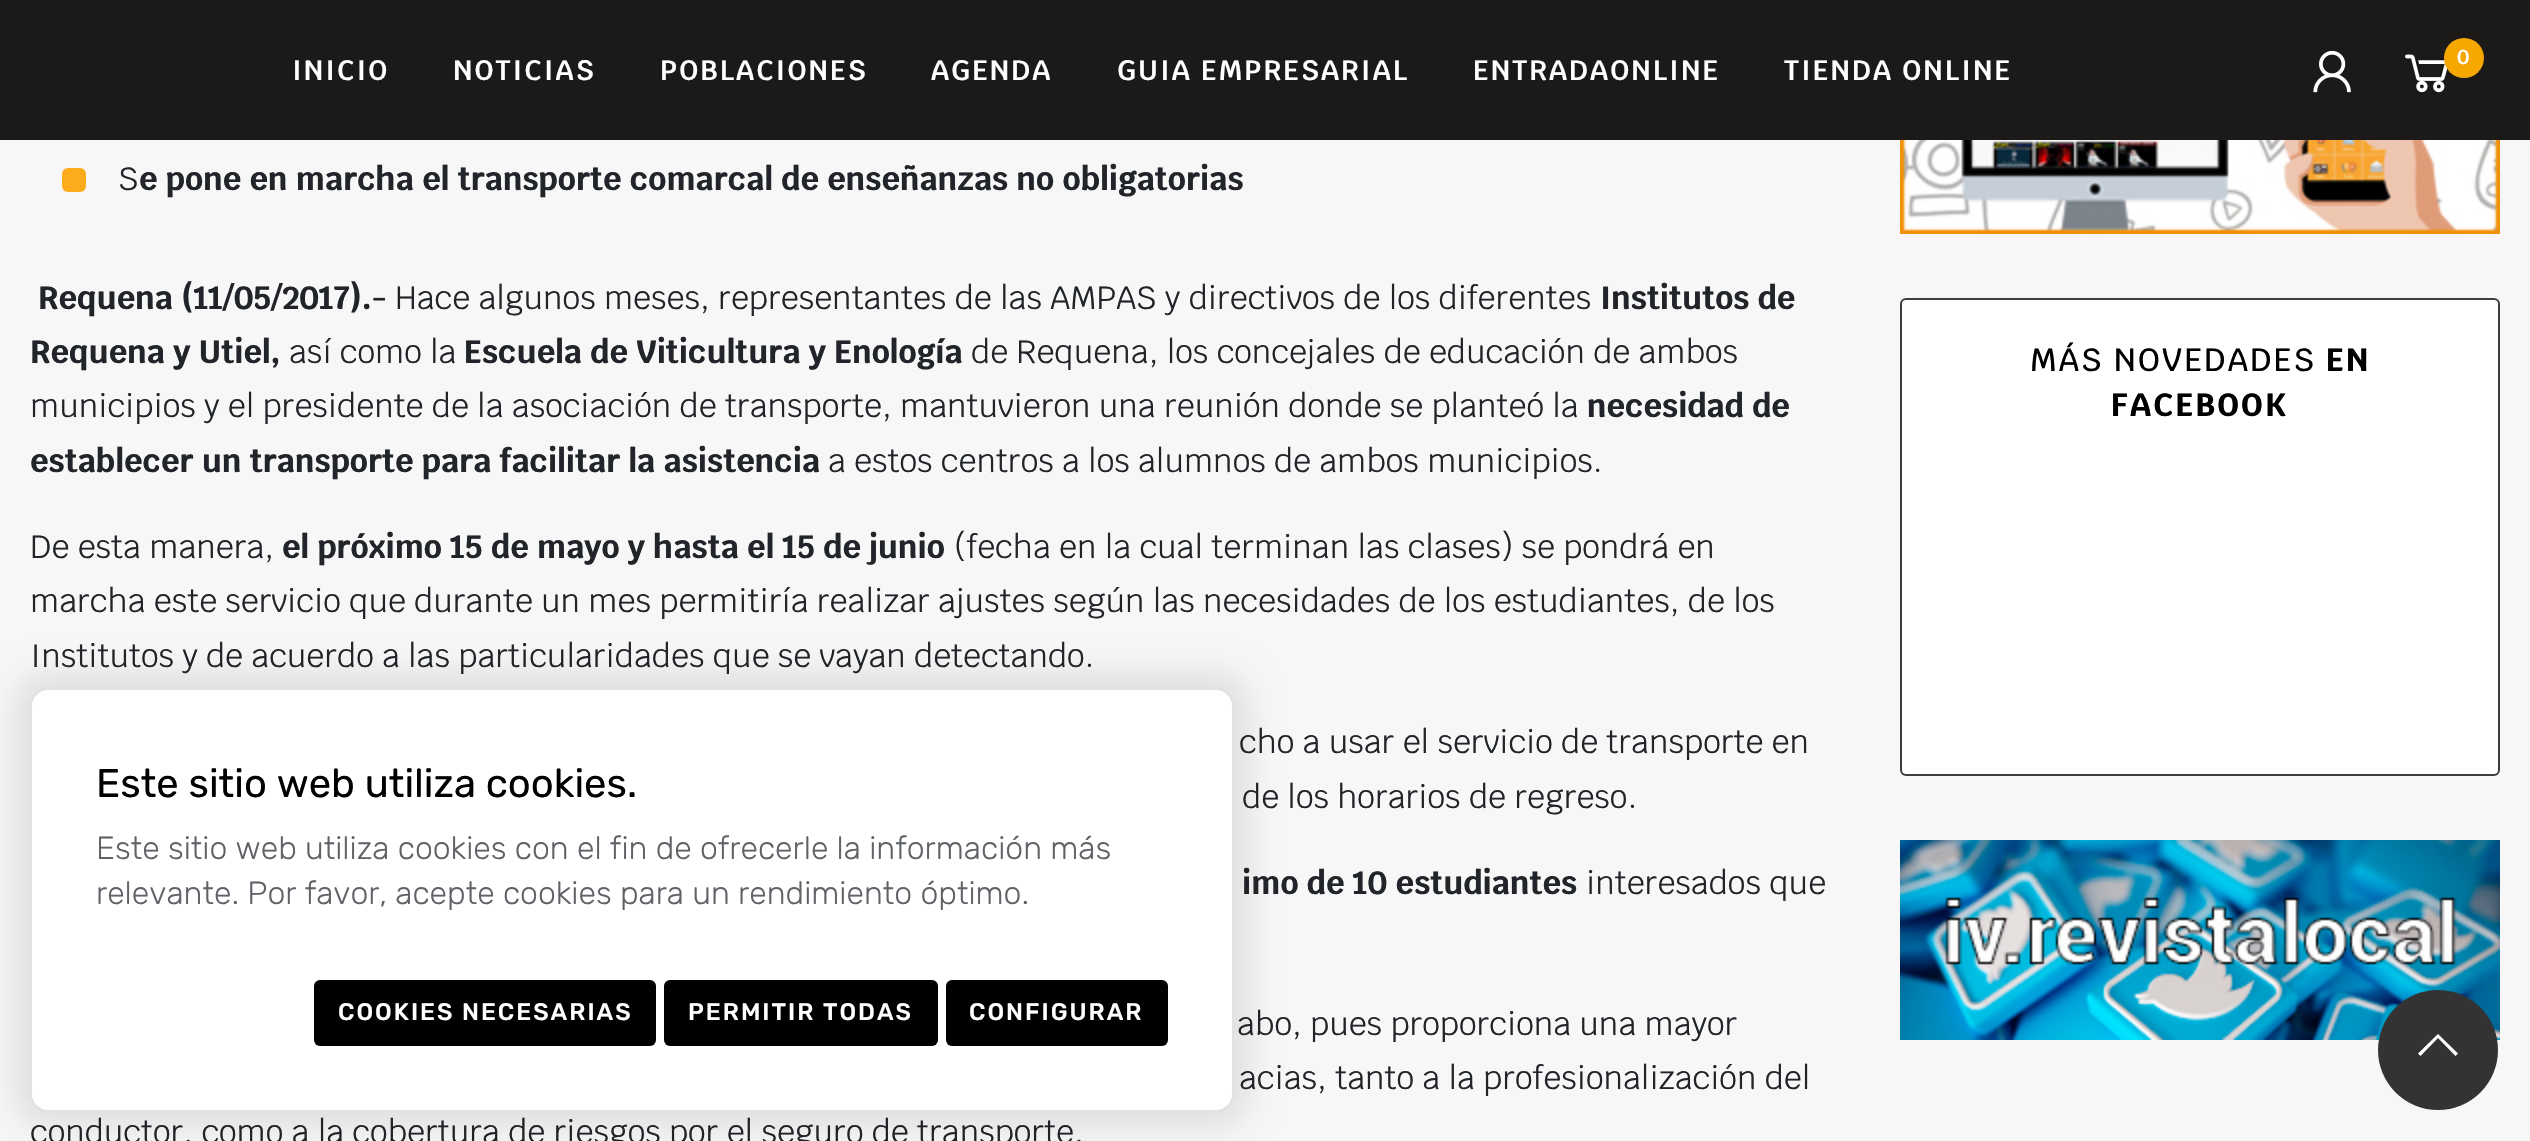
void draw(SkCanvas* canvas) {
    SkPaint paint;
    paint.setAntiAlias(true);
    auto spacedText = [&](const char* s, float x, float y, const SkFont& font, const SkPaint& ink, float letter, float word) {
        std::vector<SkGlyphID> glyphs(font.countText(s, strlen(s), SkTextEncoding::kUTF8));
        std::vector<float> xs(glyphs.size());
        font.textToGlyphs(s, strlen(s), SkTextEncoding::kUTF8, glyphs);
        font.getXPos(glyphs, xs, x);
        float extra = 0;
        for (size_t i = 0; i < glyphs.size(); i++) {
            xs[i] += extra;
            extra += letter + word * (glyphs[i] == font.unicharToGlyph(' '));
        }
        canvas->drawTextBlob(SkTextBlob::MakeFromPosHGlyphs(glyphs, xs, y, font), 0, 0, ink);
    };
    canvas->clear(0xFFF7F7F7);
    paint.setColor(0xFF1C1919);
    canvas->drawRect(SkRect::MakeXYWH(0, 0, 2530, 140), paint);
    canvas->drawImageRect(SkImages::DeferredFromEncodedData(SkData::MakeFromFileName("img1.png")), SkRect::MakeXYWH(2313, 50, 38, 43), SkSamplingOptions());
    canvas->drawImageRect(SkImages::DeferredFromEncodedData(SkData::MakeFromFileName("img2.png")), SkRect::MakeXYWH(2405, 54, 43, 39), SkSamplingOptions());
    paint.setColor(0xFFF7A800);
    canvas->drawCircle(2464, 58, 20, paint);
    SkFont font1(fontMgr->matchFamilyStyle("Krub", SkFontStyle(600, SkFontStyle::kNormal_Width, SkFontStyle::kUpright_Slant)), 20);
    font1.setSubpixel(true);
    paint.setColor(0xFFFFFFFF);
    spacedText("0", 2457, 64, font1, paint, 2, 0);
    SkFont font2(fontMgr->matchFamilyStyle("Krub", SkFontStyle(600, SkFontStyle::kNormal_Width, SkFontStyle::kUpright_Slant)), 28);
    font2.setSubpixel(true);
    spacedText("INICIO", 292, 80, font2, paint, 2, 0);
    spacedText("NOTICIAS", 453, 80, font2, paint, 2, 0);
    spacedText("POBLACIONES", 660, 80, font2, paint, 2, 0);
    spacedText("AGENDA", 931, 80, font2, paint, 2, 0);
    spacedText("GUIA EMPRESARIAL", 1117, 80, font2, paint, 2, 0);
    spacedText("ENTRADAONLINE", 1473, 80, font2, paint, 2, 0);
    spacedText("TIENDA ONLINE", 1784, 80, font2, paint, 2, 0);
    paint.setColor(0xFFFBAB1B);
    canvas->drawRoundRect(SkRect::MakeXYWH(62, 168, 24, 24), 6, 6, paint);
    SkFont font3(fontMgr->matchFamilyStyle("Krub", SkFontStyle::Normal()), 32);
    font3.setSubpixel(true);
    paint.setColor(0xFF212529);
    canvas->drawString("S", 118, 190, font3, paint);
    SkFont font4(fontMgr->matchFamilyStyle("Krub", SkFontStyle::Bold()), 32);
    font4.setSubpixel(true);
    canvas->drawString("e pone en marcha el transporte comarcal de enseñanzas no obligatorias", 139, 190, font4, paint);
    canvas->drawString("Requena (11/05/2017).-", 38, 309, font4, paint);
    canvas->drawString("Hace algunos meses, representantes de las AMPAS y directivos de los diferentes", 395, 309, font3, paint);
    canvas->drawString("Institutos de", 1600, 309, font4, paint);
    canvas->drawString("Requena y Utiel,", 30, 363, font4, paint);
    canvas->drawString("así como la", 289, 363, font3, paint);
    canvas->drawString("Escuela de Viticultura y Enología", 464, 363, font4, paint);
    canvas->drawString("de Requena, los concejales de educación de ambos", 971, 363, font3, paint);
    canvas->drawString("municipios y el presidente de la asociación de transporte, mantuvieron una reunión donde se planteó la", 30, 417, font3, paint);
    canvas->drawString("necesidad de", 1587, 417, font4, paint);
    canvas->drawString("establecer un transporte para facilitar la asistencia", 30, 472, font4, paint);
    canvas->drawString("a estos centros a los alumnos de ambos municipios.", 828, 472, font3, paint);
    canvas->drawString("De esta manera,", 30, 558, font3, paint);
    canvas->drawString("el próximo 15 de mayo y hasta el 15 de junio", 282, 558, font4, paint);
    canvas->drawString("(fecha en la cual terminan las clases) se pondrá en", 954, 558, font3, paint);
    canvas->drawString("marcha este servicio que durante un mes permitiría realizar ajustes según las necesidades de los estudiantes, de los", 30, 612, font3, paint);
    canvas->drawString("Institutos y de acuerdo a las particularidades que se vayan detectando.", 30, 667, font3, paint);
    canvas->drawString("cho a usar el servicio de transporte en", 1239, 753, font3, paint);
    canvas->drawString("de los horarios de regreso.", 1242, 808, font3, paint);
    canvas->drawString("imo de 10 estudiantes", 1242, 894, font4, paint);
    canvas->drawString("interesados que", 1586, 894, font3, paint);
    canvas->drawString("abo, pues proporciona una mayor", 1237, 1035, font3, paint);
    canvas->drawString("acias, tanto a la profesionalización del", 1239, 1089, font3, paint);
    canvas->drawString("conductor, como a la cobertura de riesgos por el seguro de transporte.", 30, 1143, font3, paint);
    canvas->drawImageRect(SkImages::DeferredFromEncodedData(SkData::MakeFromFileName("img3.png")), SkRect::MakeXYWH(1900, 140, 600, 94), SkSamplingOptions());
    paint.setColor(0xFFFFFFFF);
    canvas->drawRoundRect(SkRect::MakeXYWH(1901, 299, 598, 476), 5, 5, paint);
    paint.setStyle(SkPaint::kStroke_Style);
    paint.setStrokeWidth(2);
    paint.setColor(0xFF403D3C);
    canvas->drawRoundRect(SkRect::MakeXYWH(1901, 299, 598, 476), 5, 5, paint);
    SkFont font5(fontMgr->matchFamilyStyle("Krub", SkFontStyle(500, SkFontStyle::kNormal_Width, SkFontStyle::kUpright_Slant)), 32);
    font5.setSubpixel(true);
    paint.setStyle(SkPaint::kFill_Style);
    paint.setColor(0xFF000000);
    spacedText("MÁS NOVEDADES", 2030, 371, font5, paint, 2, 0);
    spacedText("EN", 2326, 371, font4, paint, 2, 0);
    spacedText("FACEBOOK", 2111, 416, font4, paint, 2, 0);
    canvas->drawImageRect(SkImages::DeferredFromEncodedData(SkData::MakeFromFileName("img4.png")), SkRect::MakeXYWH(1900, 840, 600, 200), SkSamplingOptions());
    paint.setColor(0x1A000000);
    paint.setMaskFilter(SkMaskFilter::MakeBlur(kNormal_SkBlurStyle, 16));
    canvas->drawRoundRect(SkRect::MakeXYWH(16, 674, 1232, 452), 32, 32, paint);
    paint.setMaskFilter(nullptr);
    paint.setStyle(SkPaint::kStroke_Style);
    paint.setColor(0xFFDFE1E5);
    canvas->drawRoundRect(SkRect::MakeXYWH(31, 689, 1202, 422), 17, 17, paint);
    paint.setStyle(SkPaint::kFill_Style);
    paint.setColor(0xFFFFFFFF);
    canvas->drawRoundRect(SkRect::MakeXYWH(32, 690, 1200, 420), 16, 16, paint);
    SkFont font6(fontMgr->matchFamilyStyle("Rubik", SkFontStyle::Normal()), 40);
    font6.setSubpixel(true);
    paint.setColor(0xFF000000);
    canvas->drawString("Este sitio web utiliza cookies.", 96, 797, font6, paint);
    SkFont font7(fontMgr->matchFamilyStyle("Rubik", SkFontStyle(300, SkFontStyle::kNormal_Width, SkFontStyle::kUpright_Slant)), 32);
    font7.setSubpixel(true);
    paint.setColor(0xFF5F6368);
    canvas->drawString("Este sitio web utiliza cookies con el fin de ofrecerle la información más", 96, 859, font7, paint);
    canvas->drawString("relevante. Por favor, acepte cookies para un rendimiento óptimo.", 96, 904, font7, paint);
    paint.setColor(0xFF000000);
    canvas->drawRoundRect(SkRect::MakeXYWH(314, 980, 342, 66), 6, 6, paint);
    SkFont font8(fontMgr->matchFamilyStyle("Rubik", SkFontStyle(500, SkFontStyle::kNormal_Width, SkFontStyle::kUpright_Slant)), 24);
    font8.setSubpixel(true);
    paint.setColor(0xFFFFFFFF);
    spacedText("COOKIES NECESARIAS", 338, 1020, font8, paint, 2, 0);
    paint.setColor(0xFF000000);
    canvas->drawRoundRect(SkRect::MakeXYWH(664, 980, 274, 66), 6, 6, paint);
    paint.setColor(0xFFFFFFFF);
    spacedText("PERMITIR TODAS", 688, 1020, font8, paint, 2, 0);
    paint.setColor(0xFF000000);
    canvas->drawRoundRect(SkRect::MakeXYWH(946, 980, 222, 66), 6, 6, paint);
    paint.setColor(0xFFFFFFFF);
    spacedText("CONFIGURAR", 969, 1020, font8, paint, 2, 0);
    paint.setColor(0xFF333333);
    canvas->drawCircle(2438, 1050, 60, paint);
    paint.setColor(0xFFFFFFFF);
    canvas->drawPath(SkPathBuilder().moveTo(2438, 1034).lineTo(2458, 1053.5f).lineTo(2455.5f, 1056).lineTo(2438, 1038).lineTo(2420.5f, 1056).lineTo(2418, 1053.5f).close().detach(), paint);
}
